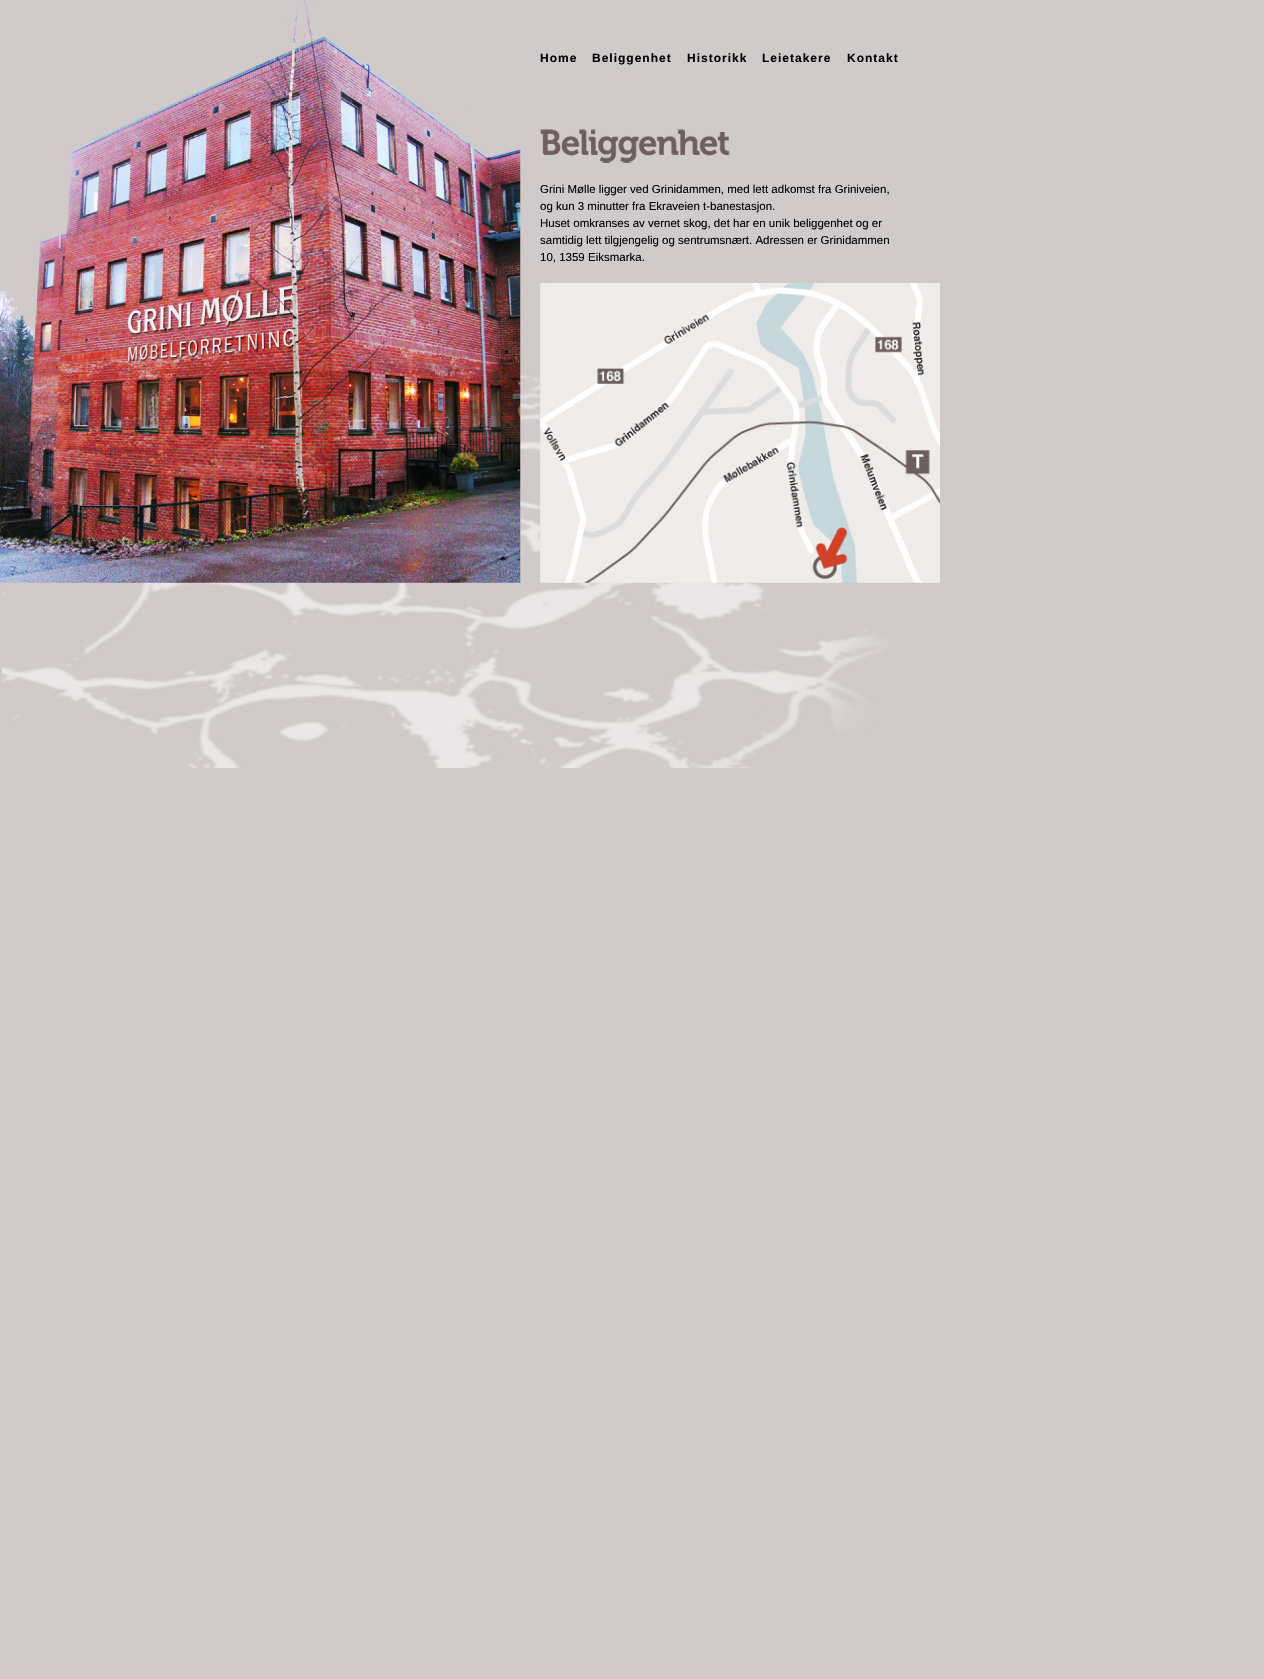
void draw(SkCanvas* canvas) {
    SkPaint paint;
    paint.setAntiAlias(true);
    auto spacedText = [&](const char* s, float x, float y, const SkFont& font, const SkPaint& ink, float letter, float word) {
        std::vector<SkGlyphID> glyphs(font.countText(s, strlen(s), SkTextEncoding::kUTF8));
        std::vector<float> xs(glyphs.size());
        font.textToGlyphs(s, strlen(s), SkTextEncoding::kUTF8, glyphs);
        font.getXPos(glyphs, xs, x);
        float extra = 0;
        for (size_t i = 0; i < glyphs.size(); i++) {
            xs[i] += extra;
            extra += letter + word * (glyphs[i] == font.unicharToGlyph(' '));
        }
        canvas->drawTextBlob(SkTextBlob::MakeFromPosHGlyphs(glyphs, xs, y, font), 0, 0, ink);
    };
    canvas->clear(0xFFD0CAC9);
    canvas->drawImageRect(SkImages::DeferredFromEncodedData(SkData::MakeFromFileName("img1.png")), SkRect::MakeXYWH(0, 0, 888, 768), SkSamplingOptions());
    SkFont font1(fontMgr->matchFamilyStyle("Liberation Sans", SkFontStyle::Bold()), 12);
    font1.setSubpixel(true);
    paint.setColor(0xFF000000);
    spacedText("Home", 540, 62, font1, paint, 1, 0);
    spacedText("Beliggenhet", 592, 62, font1, paint, 1, 0);
    spacedText("Historikk", 687, 62, font1, paint, 1, 0);
    spacedText("Leietakere", 762, 62, font1, paint, 1, 0);
    spacedText("Kontakt", 847, 62, font1, paint, 1, 0);
    canvas->drawImageRect(SkImages::DeferredFromEncodedData(SkData::MakeFromFileName("img2.png")), SkRect::MakeXYWH(540, 129, 190, 34), SkSamplingOptions());
    SkFont font2(fontMgr->matchFamilyStyle("Liberation Sans", SkFontStyle::Normal()), 11.5f);
    font2.setSubpixel(true);
    canvas->drawString("Grini Mølle ligger ved Grinidammen, med lett adkomst fra Griniveien,", 540, 193, font2, paint);
    canvas->drawString("og kun 3 minutter fra Ekraveien t-banestasjon.", 540, 210, font2, paint);
    canvas->drawString("Huset omkranses av vernet skog, det har en unik beliggenhet og er", 540, 227, font2, paint);
    canvas->drawString("samtidig lett tilgjengelig og sentrumsnært. Adressen er Grinidammen", 540, 244, font2, paint);
    canvas->drawString("10, 1359 Eiksmarka.", 540, 261, font2, paint);
    canvas->drawImageRect(SkImages::DeferredFromEncodedData(SkData::MakeFromFileName("img3.png")), SkRect::MakeXYWH(540, 283, 400, 300), SkSamplingOptions());
}
